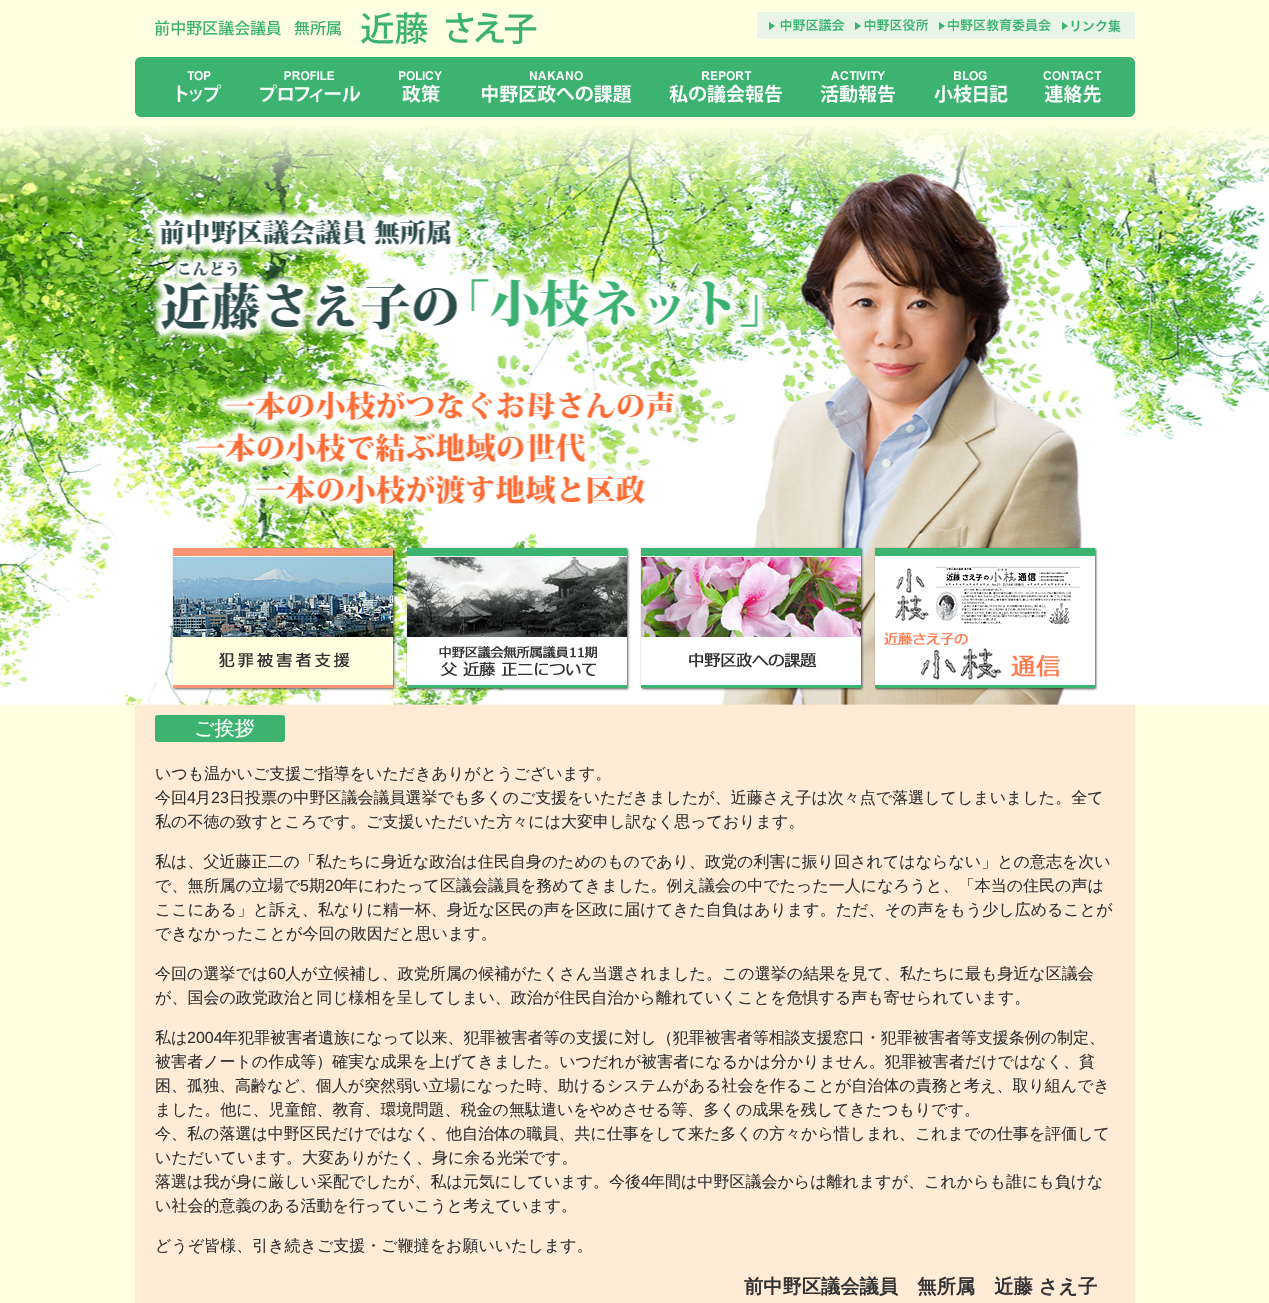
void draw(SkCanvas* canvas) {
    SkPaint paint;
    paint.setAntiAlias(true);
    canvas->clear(0xFFFFFFE1);
    canvas->drawImageRect(SkImages::DeferredFromEncodedData(SkData::MakeFromFileName("img1.png")), SkRect::MakeXYWH(155, 12, 382, 33), SkSamplingOptions());
    canvas->drawImageRect(SkImages::DeferredFromEncodedData(SkData::MakeFromFileName("img2.png")), SkRect::MakeXYWH(757, 12, 92, 27), SkSamplingOptions());
    canvas->drawImageRect(SkImages::DeferredFromEncodedData(SkData::MakeFromFileName("img3.png")), SkRect::MakeXYWH(849, 12, 85, 27), SkSamplingOptions());
    canvas->drawImageRect(SkImages::DeferredFromEncodedData(SkData::MakeFromFileName("img4.png")), SkRect::MakeXYWH(934, 12, 122, 27), SkSamplingOptions());
    canvas->drawImageRect(SkImages::DeferredFromEncodedData(SkData::MakeFromFileName("img5.png")), SkRect::MakeXYWH(1056, 12, 79, 27), SkSamplingOptions());
    canvas->drawImageRect(SkImages::DeferredFromEncodedData(SkData::MakeFromFileName("img6.png")), SkRect::MakeXYWH(135, 57, 113, 60), SkSamplingOptions());
    canvas->drawImageRect(SkImages::DeferredFromEncodedData(SkData::MakeFromFileName("img7.png")), SkRect::MakeXYWH(248, 57, 133, 60), SkSamplingOptions());
    canvas->drawImageRect(SkImages::DeferredFromEncodedData(SkData::MakeFromFileName("img8.png")), SkRect::MakeXYWH(381, 57, 82, 60), SkSamplingOptions());
    canvas->drawImageRect(SkImages::DeferredFromEncodedData(SkData::MakeFromFileName("img9.png")), SkRect::MakeXYWH(463, 57, 184, 60), SkSamplingOptions());
    canvas->drawImageRect(SkImages::DeferredFromEncodedData(SkData::MakeFromFileName("img10.png")), SkRect::MakeXYWH(647, 57, 153, 60), SkSamplingOptions());
    canvas->drawImageRect(SkImages::DeferredFromEncodedData(SkData::MakeFromFileName("img11.png")), SkRect::MakeXYWH(800, 57, 116, 60), SkSamplingOptions());
    canvas->drawImageRect(SkImages::DeferredFromEncodedData(SkData::MakeFromFileName("img12.png")), SkRect::MakeXYWH(916, 57, 111, 60), SkSamplingOptions());
    canvas->drawImageRect(SkImages::DeferredFromEncodedData(SkData::MakeFromFileName("img13.png")), SkRect::MakeXYWH(1027, 57, 108, 60), SkSamplingOptions());
    canvas->drawImageRect(SkImages::DeferredFromEncodedData(SkData::MakeFromFileName("img14.png")), SkRect::MakeXYWH(0, 125, 1269, 580), SkSamplingOptions());
    canvas->drawImageRect(SkImages::DeferredFromEncodedData(SkData::MakeFromFileName("img15.png")), SkRect::MakeXYWH(172, 547, 224, 144), SkSamplingOptions());
    canvas->drawImageRect(SkImages::DeferredFromEncodedData(SkData::MakeFromFileName("img16.png")), SkRect::MakeXYWH(406, 547, 224, 144), SkSamplingOptions());
    canvas->drawImageRect(SkImages::DeferredFromEncodedData(SkData::MakeFromFileName("img17.png")), SkRect::MakeXYWH(640, 547, 224, 144), SkSamplingOptions());
    canvas->drawImageRect(SkImages::DeferredFromEncodedData(SkData::MakeFromFileName("img18.png")), SkRect::MakeXYWH(874, 547, 224, 144), SkSamplingOptions());
    paint.setColor(0xFFFFEBD6);
    canvas->drawRect(SkRect::MakeXYWH(135, 705, 1000, 598), paint);
    paint.setColor(0xFF3CB371);
    canvas->drawRoundRect(SkRect::MakeXYWH(155, 715, 130, 27), 3, 3, paint);
    SkFont font1(fontMgr->matchFamilyStyle("WenQuanYi Zen Hei", SkFontStyle(500, SkFontStyle::kNormal_Width, SkFontStyle::kUpright_Slant)), 20);
    font1.setSubpixel(true);
    paint.setColor(0xFFFFFFFF);
    canvas->drawString("ご挨拶", 194, 735, font1, paint);
    SkFont font2(fontMgr->matchFamilyStyle("WenQuanYi Zen Hei", SkFontStyle(500, SkFontStyle::kNormal_Width, SkFontStyle::kUpright_Slant)), 16);
    font2.setSubpixel(true);
    paint.setColor(0xFF333333);
    canvas->drawString("いつも温かいご支援ご指導をいただきありがとうございます。", 155, 779, font2, paint);
    canvas->drawString("今回", 155, 803, font2, paint);
    SkFont font3(fontMgr->matchFamilyStyle("Liberation Sans", SkFontStyle::Normal()), 16);
    font3.setSubpixel(true);
    canvas->drawString("4", 187, 803, font3, paint);
    canvas->drawString("月", 195, 803, font2, paint);
    canvas->drawString("23", 211, 803, font3, paint);
    canvas->drawString("日投票の中野区議会議員選挙でも多くのご支援をいただきましたが、近藤さえ子は次々点で落選してしまいました。全て", 229, 803, font2, paint);
    canvas->drawString("私の不徳の致すところです。ご支援いただいた方々には大変申し訳なく思っております。", 155, 827, font2, paint);
    canvas->drawString("私は、父近藤正二の「私たちに身近な政治は住民自身のためのものであり、政党の利害に振り回されてはならない」との意志を次い", 155, 867, font2, paint);
    canvas->drawString("で、無所属の立場で", 155, 891, font2, paint);
    canvas->drawString("5", 300, 891, font3, paint);
    canvas->drawString("期", 309, 891, font2, paint);
    canvas->drawString("20", 325, 891, font3, paint);
    canvas->drawString("年にわたって区議会議員を務めてきました。例え議会の中でたった一人になろうと、「本当の住民の声は", 342, 891, font2, paint);
    canvas->drawString("ここにある」と訴え、私なりに精一杯、身近な区民の声を区政に届けてきた自負はあります。ただ、その声をもう少し広めることが", 155, 915, font2, paint);
    canvas->drawString("できなかったことが今回の敗因だと思います。", 155, 939, font2, paint);
    canvas->drawString("今回の選挙では", 155, 979, font2, paint);
    canvas->drawString("60", 268, 979, font3, paint);
    canvas->drawString("人が立候補し、政党所属の候補がたくさん当選されました。この選挙の結果を見て、私たちに最も身近な区議会", 285, 979, font2, paint);
    canvas->drawString("が、国会の政党政治と同じ様相を呈してしまい、政治が住民自治から離れていくことを危惧する声も寄せられています。", 155, 1003, font2, paint);
    canvas->drawString("私は", 155, 1043, font2, paint);
    canvas->drawString("2004", 187, 1043, font3, paint);
    canvas->drawString("年犯罪被害者遺族になって以来、犯罪被害者等の支援に対し（犯罪被害者等相談支援窓口・犯罪被害者等支援条例の制定、", 222, 1043, font2, paint);
    canvas->drawString("被害者ノートの作成等）確実な成果を上げてきました。いつだれが被害者になるかは分かりません。犯罪被害者だけではなく、貧", 155, 1067, font2, paint);
    canvas->drawString("困、孤独、高齢など、個人が突然弱い立場になった時、助けるシステムがある社会を作ることが自治体の責務と考え、取り組んでき", 155, 1091, font2, paint);
    canvas->drawString("ました。他に、児童館、教育、環境問題、税金の無駄遣いをやめさせる等、多くの成果を残してきたつもりです。", 155, 1115, font2, paint);
    canvas->drawString("今、私の落選は中野区民だけではなく、他自治体の職員、共に仕事をして来た多くの方々から惜しまれ、これまでの仕事を評価して", 155, 1139, font2, paint);
    canvas->drawString("いただいています。大変ありがたく、身に余る光栄です。", 155, 1163, font2, paint);
    canvas->drawString("落選は我が身に厳しい采配でしたが、私は元気にしています。今後", 155, 1187, font2, paint);
    canvas->drawString("4", 641, 1187, font3, paint);
    canvas->drawString("年間は中野区議会からは離れますが、これからも誰にも負けな", 649, 1187, font2, paint);
    canvas->drawString("い社会的意義のある活動を行っていこうと考えています。", 155, 1211, font2, paint);
    canvas->drawString("どうぞ皆様、引き続きご支援・ご鞭撻をお願いいたします。", 155, 1251, font2, paint);
    SkFont font4(fontMgr->matchFamilyStyle("WenQuanYi Zen Hei", SkFontStyle::Bold()), 19.25f);
    font4.setSubpixel(true);
    canvas->drawString("前中野区議会議員　無所属　近藤 さえ子", 744, 1293, font4, paint);
}
